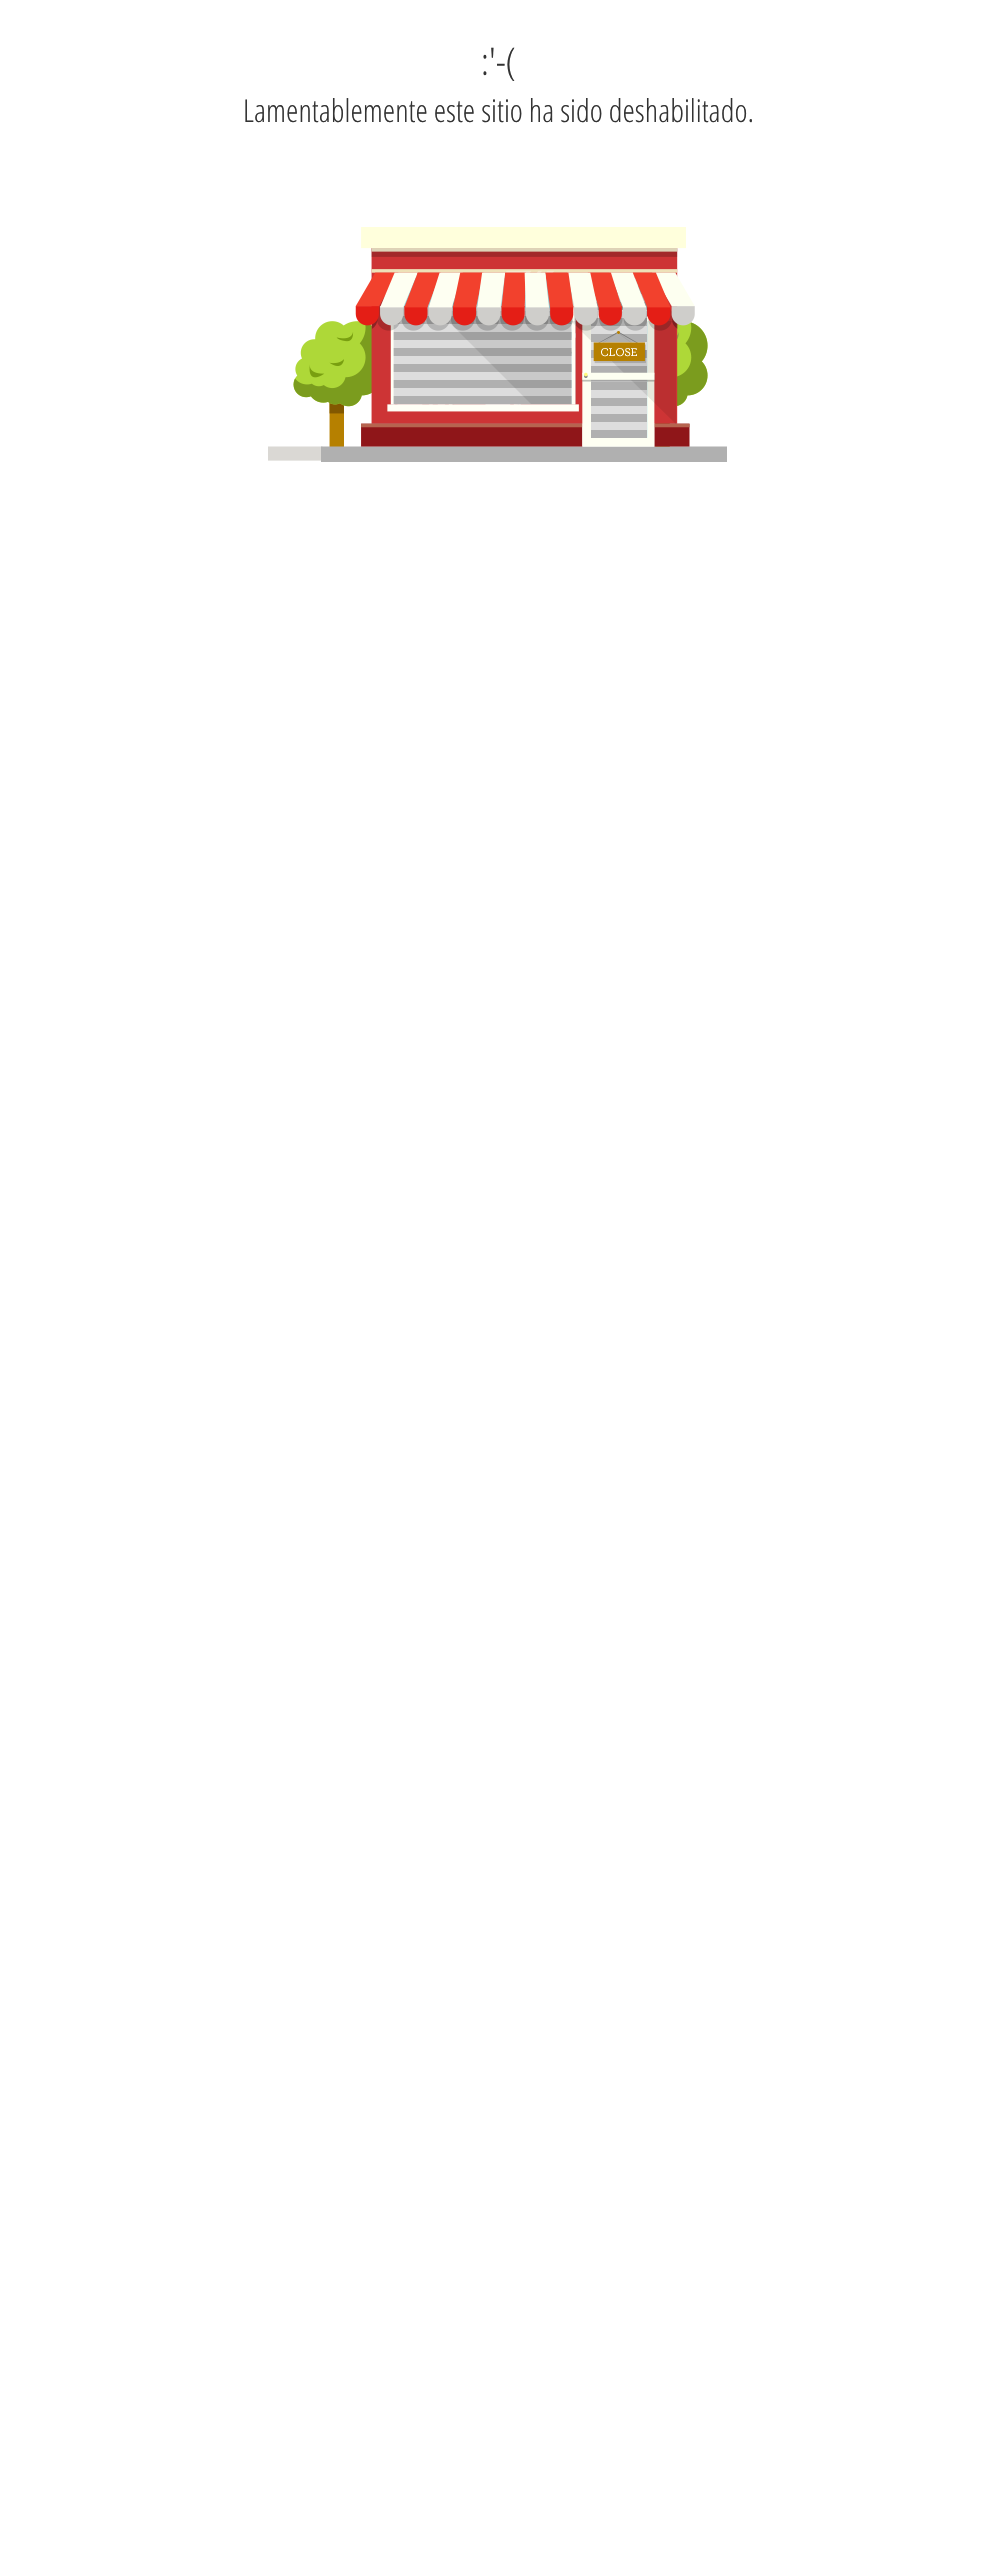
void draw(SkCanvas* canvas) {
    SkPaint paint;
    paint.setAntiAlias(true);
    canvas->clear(0xFFFFFFFF);
    SkFont font1(fontMgr->matchFamilyStyle("Open Sans Condensed", SkFontStyle(300, SkFontStyle::kNormal_Width, SkFontStyle::kUpright_Slant)), 38);
    font1.setSubpixel(true);
    paint.setColor(0xFF333333);
    canvas->drawString(":'-(", 481, 75, font1, paint);
    SkFont font2(fontMgr->matchFamilyStyle("Open Sans Condensed", SkFontStyle(300, SkFontStyle::kNormal_Width, SkFontStyle::kUpright_Slant)), 31.5f);
    font2.setSubpixel(true);
    canvas->drawString("Lamentablemente este sitio ha sido deshabilitado.", 243, 122, font2, paint);
    canvas->drawImageRect(SkImages::DeferredFromEncodedData(SkData::MakeFromFileName("img1.png")), SkRect::MakeXYWH(268, 227, 459, 235), SkSamplingOptions());
}
